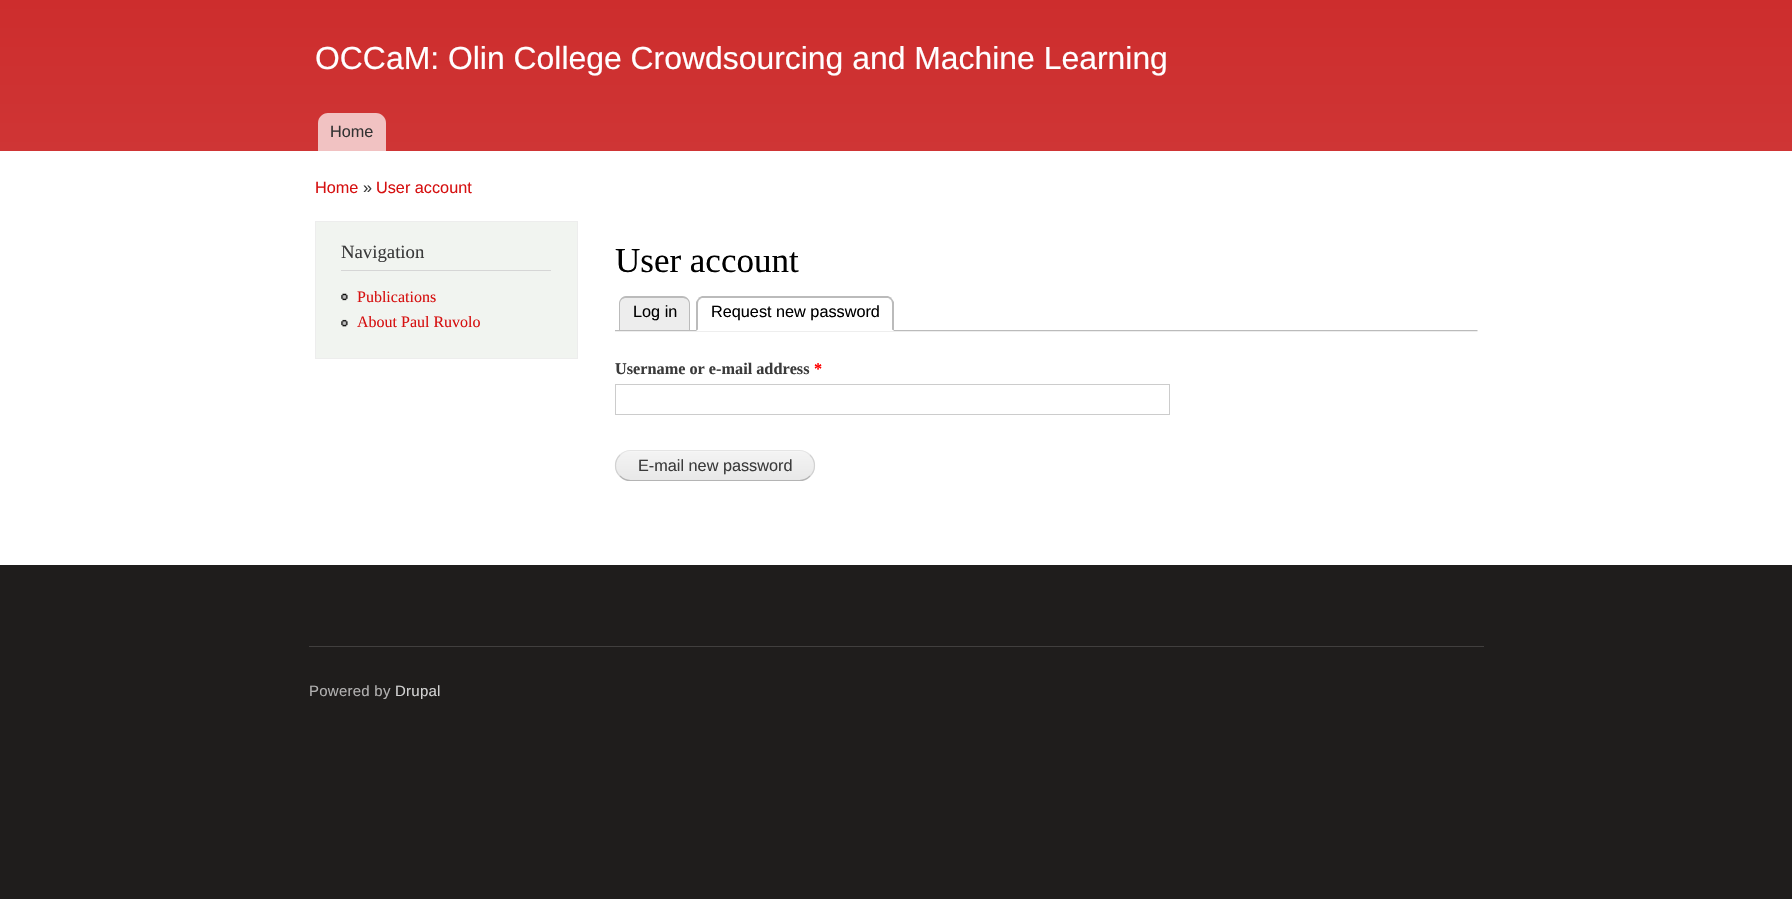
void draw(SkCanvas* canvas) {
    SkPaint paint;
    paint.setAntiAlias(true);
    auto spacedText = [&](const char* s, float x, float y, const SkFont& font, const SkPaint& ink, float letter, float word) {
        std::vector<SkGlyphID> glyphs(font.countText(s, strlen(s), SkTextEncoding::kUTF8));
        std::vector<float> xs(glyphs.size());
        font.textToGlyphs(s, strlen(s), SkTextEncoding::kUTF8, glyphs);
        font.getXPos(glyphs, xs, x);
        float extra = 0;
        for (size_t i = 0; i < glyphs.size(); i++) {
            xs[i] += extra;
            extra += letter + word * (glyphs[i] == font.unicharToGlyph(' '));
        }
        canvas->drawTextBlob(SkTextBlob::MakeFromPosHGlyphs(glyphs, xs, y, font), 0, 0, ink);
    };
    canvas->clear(0xFF1F1D1C);
    paint.setColor(0xFFFFFFFF);
    canvas->drawRect(SkRect::MakeXYWH(0, 151, 1792, 414), paint);
    {
        const SkColor colors[] = {0xFFCD2D2D, 0xFFCF3535};
        const float stops[] = {0, 1};
        const SkPoint ends[] = {{896, 0}, {896, 151}};
        paint.setShader(SkGradientShader::MakeLinear(ends, colors, stops, 2, SkTileMode::kClamp));
        paint.setAlpha(255);
    }
    canvas->drawRect(SkRect::MakeXYWH(0, 0, 1792, 151), paint);
    SkFont font1(fontMgr->matchFamilyStyle("Liberation Sans", SkFontStyle::Normal()), 31.9f);
    font1.setSubpixel(true);
    paint.setShader(nullptr);
    paint.setColor(0xFFFFFEFF);
    canvas->drawString("OCCaM: Olin College Crowdsourcing and Machine Learning", 315, 69, font1, paint);
    paint.setColor(0xFFF1C2C2);
    canvas->drawPath(SkPathBuilder().moveTo(328, 113).lineTo(376, 113).cubicTo(381.5f, 113, 386, 117.5f, 386, 123).lineTo(386, 151).lineTo(318, 151).lineTo(318, 123).cubicTo(318, 117.5f, 322.5f, 113, 328, 113).close().detach(), paint);
    SkFont font2(fontMgr->matchFamilyStyle("Liberation Sans", SkFontStyle::Normal()), 16.25f);
    font2.setSubpixel(true);
    paint.setColor(0xFF333333);
    canvas->drawString("Home", 330, 137, font2, paint);
    paint.setColor(0xFFD61111);
    canvas->drawString("Home", 315, 193, font2, paint);
    paint.setColor(0xFF3B3B3B);
    canvas->drawString("»", 363, 193, font2, paint);
    paint.setColor(0xFFD61111);
    canvas->drawString("User account", 376, 193, font2, paint);
    paint.setColor(0xFFF1F4F0);
    canvas->drawRect(SkRect::MakeXYWH(315.5f, 221.5f, 262, 137), paint);
    paint.setStyle(SkPaint::kStroke_Style);
    paint.setStrokeWidth(1);
    paint.setColor(0xFFEDEDED);
    canvas->drawRect(SkRect::MakeXYWH(315.5f, 221.5f, 262, 137), paint);
    paint.setStyle(SkPaint::kFill_Style);
    paint.setColor(0xFFD6D6D6);
    canvas->drawRect(SkRect::MakeXYWH(341, 270, 210, 1), paint);
    SkFont font3(fontMgr->matchFamilyStyle("Liberation Serif", SkFontStyle::Normal()), 18.75f);
    font3.setSubpixel(true);
    paint.setColor(0xFF3B3B3B);
    canvas->drawString("Navigation", 341, 258, font3, paint);
    canvas->drawImageRect(SkImages::DeferredFromEncodedData(SkData::MakeFromFileName("img1.png")), SkRect::MakeXYWH(341, 293, 7, 8), SkSamplingOptions());
    SkFont font4(fontMgr->matchFamilyStyle("Liberation Serif", SkFontStyle::Normal()), 16);
    font4.setSubpixel(true);
    paint.setColor(0xFFD61111);
    canvas->drawString("Publications", 357, 302, font4, paint);
    canvas->drawImageRect(SkImages::DeferredFromEncodedData(SkData::MakeFromFileName("img2.png")), SkRect::MakeXYWH(341, 319, 7, 8), SkSamplingOptions());
    canvas->drawString("About Paul Ruvolo", 357, 327, font4, paint);
    SkFont font5(fontMgr->matchFamilyStyle("Liberation Serif", SkFontStyle::Normal()), 35);
    font5.setSubpixel(true);
    paint.setColor(0xFF000000);
    canvas->drawString("User account", 615, 272, font5, paint);
    canvas->drawImageRect(SkImages::DeferredFromEncodedData(SkData::MakeFromFileName("img3.png")), SkRect::MakeXYWH(615, 330, 863, 2), SkSamplingOptions());
    paint.setColor(0xFFEDEDED);
    canvas->drawPath(SkPathBuilder().moveTo(627, 296).lineTo(682, 296).cubicTo(686.5f, 296, 690, 299.5f, 690, 304).lineTo(690, 330).lineTo(619, 330).lineTo(619, 304).cubicTo(619, 299.5f, 622.5f, 296, 627, 296).close().detach(), paint);
    paint.setColor(0xFFBBBBBB);
    canvas->drawPath(SkPathBuilder(SkPathFillType::kEvenOdd).moveTo(626, 296).lineTo(682, 296).cubicTo(687, 296, 690, 300, 690, 304).lineTo(690, 330).lineTo(619, 330).lineTo(619, 304).cubicTo(619, 300, 622, 296, 626, 296).close().moveTo(626, 298).lineTo(682, 298).cubicTo(686, 298, 689, 300, 689, 304).lineTo(689, 330).lineTo(620, 330).lineTo(620, 304).cubicTo(620, 300, 623, 298, 626, 298).close().detach(), paint);
    paint.setColor(0xFF000000);
    canvas->drawString("Log in", 633, 317, font2, paint);
    paint.setColor(0xFFFFFFFF);
    canvas->drawPath(SkPathBuilder().moveTo(704, 296).lineTo(886, 296).cubicTo(890.5f, 296, 894, 299.5f, 894, 304).lineTo(894, 331).lineTo(696, 331).lineTo(696, 304).cubicTo(696, 299.5f, 699.5f, 296, 704, 296).close().detach(), paint);
    paint.setColor(0xFFBBBBBB);
    canvas->drawPath(SkPathBuilder().moveTo(704, 298).cubicTo(702, 298, 700, 298, 700, 300).lineTo(698, 298).lineTo(702, 296).lineTo(888, 296).lineTo(892, 298).lineTo(890, 300).cubicTo(890, 298, 888, 298, 886, 298).close().detach(), paint);
    canvas->drawPath(SkPathBuilder().moveTo(894, 331).lineTo(892, 329.5f).lineTo(892, 304).cubicTo(892, 302, 891.5f, 300.5f, 890.5f, 299.5f).lineTo(891.5f, 298.5f).cubicTo(892.5f, 299.5f, 893.5f, 301, 894, 302).close().detach(), paint);
    paint.setColor(0xFFFFFFFF);
    canvas->drawPath(SkPathBuilder().moveTo(894, 331).lineTo(696, 331).lineTo(698, 330).lineTo(892, 330).close().detach(), paint);
    paint.setColor(0xFFBBBBBB);
    canvas->drawPath(SkPathBuilder().moveTo(696, 302).cubicTo(696.5f, 301, 697.5f, 299.5f, 698.5f, 298.5f).lineTo(699.5f, 299.5f).cubicTo(698.5f, 300.5f, 698, 302, 698, 304).lineTo(698, 329.5f).lineTo(696, 331).close().detach(), paint);
    paint.setColor(0xFF000000);
    canvas->drawString("Request new password", 711, 317, font2, paint);
    SkFont font6(fontMgr->matchFamilyStyle("Liberation Serif", SkFontStyle::Bold()), 16.25f);
    font6.setSubpixel(true);
    paint.setColor(0xFF3B3B3B);
    canvas->drawString("Username or e-mail address", 615, 374, font6, paint);
    paint.setColor(0xFFFF0000);
    canvas->drawString("*", 814, 374, font6, paint);
    paint.setStyle(SkPaint::kStroke_Style);
    paint.setColor(0xFFCCCCCC);
    canvas->drawRect(SkRect::MakeXYWH(615.5f, 384.5f, 554, 30), paint);
    canvas->drawImageRect(SkImages::DeferredFromEncodedData(SkData::MakeFromFileName("img4.png")), SkRect::MakeXYWH(615, 451, 200, 30), SkSamplingOptions());
    paint.setStrokeWidth(1.2f);
    paint.setColor(0xFFE4E4E4);
    canvas->drawPath(SkPathBuilder().moveTo(620, 455).cubicTo(623, 452, 626.5f, 450.5f, 630.5f, 450.5f).lineTo(799.5f, 450.5f).cubicTo(803.5f, 450.5f, 807, 452, 810, 455).detach(), paint);
    paint.setColor(0xFFD2D2D2);
    canvas->drawPath(SkPathBuilder().moveTo(810, 455).cubicTo(816, 461, 816, 470.5f, 810, 476).detach(), paint);
    paint.setColor(0xFFB4B4B4);
    canvas->drawPath(SkPathBuilder().moveTo(810, 476).cubicTo(807, 479, 803.5f, 480.5f, 799.5f, 480.5f).lineTo(630.5f, 480.5f).cubicTo(626.5f, 480.5f, 623, 479, 620, 476).detach(), paint);
    paint.setColor(0xFFD2D2D2);
    canvas->drawPath(SkPathBuilder().moveTo(620, 476).cubicTo(614, 470.5f, 614, 461, 620, 455).detach(), paint);
    paint.setStyle(SkPaint::kFill_Style);
    paint.setColor(0xFF3B3B3B);
    canvas->drawString("E-mail new password", 638, 471, font2, paint);
    paint.setColor(0xFF413F3E);
    canvas->drawRect(SkRect::MakeXYWH(309, 646, 1175, 1), paint);
    SkFont font7(fontMgr->matchFamilyStyle("Liberation Sans", SkFontStyle::Normal()), 15);
    font7.setSubpixel(true);
    paint.setColor(0xFFB1B0B0);
    spacedText("Powered by", 309, 696, font7, paint, 0.25f, 0);
    paint.setColor(0xFFD2D2D2);
    spacedText("Drupal", 395, 696, font7, paint, 0.25f, 0);
}
